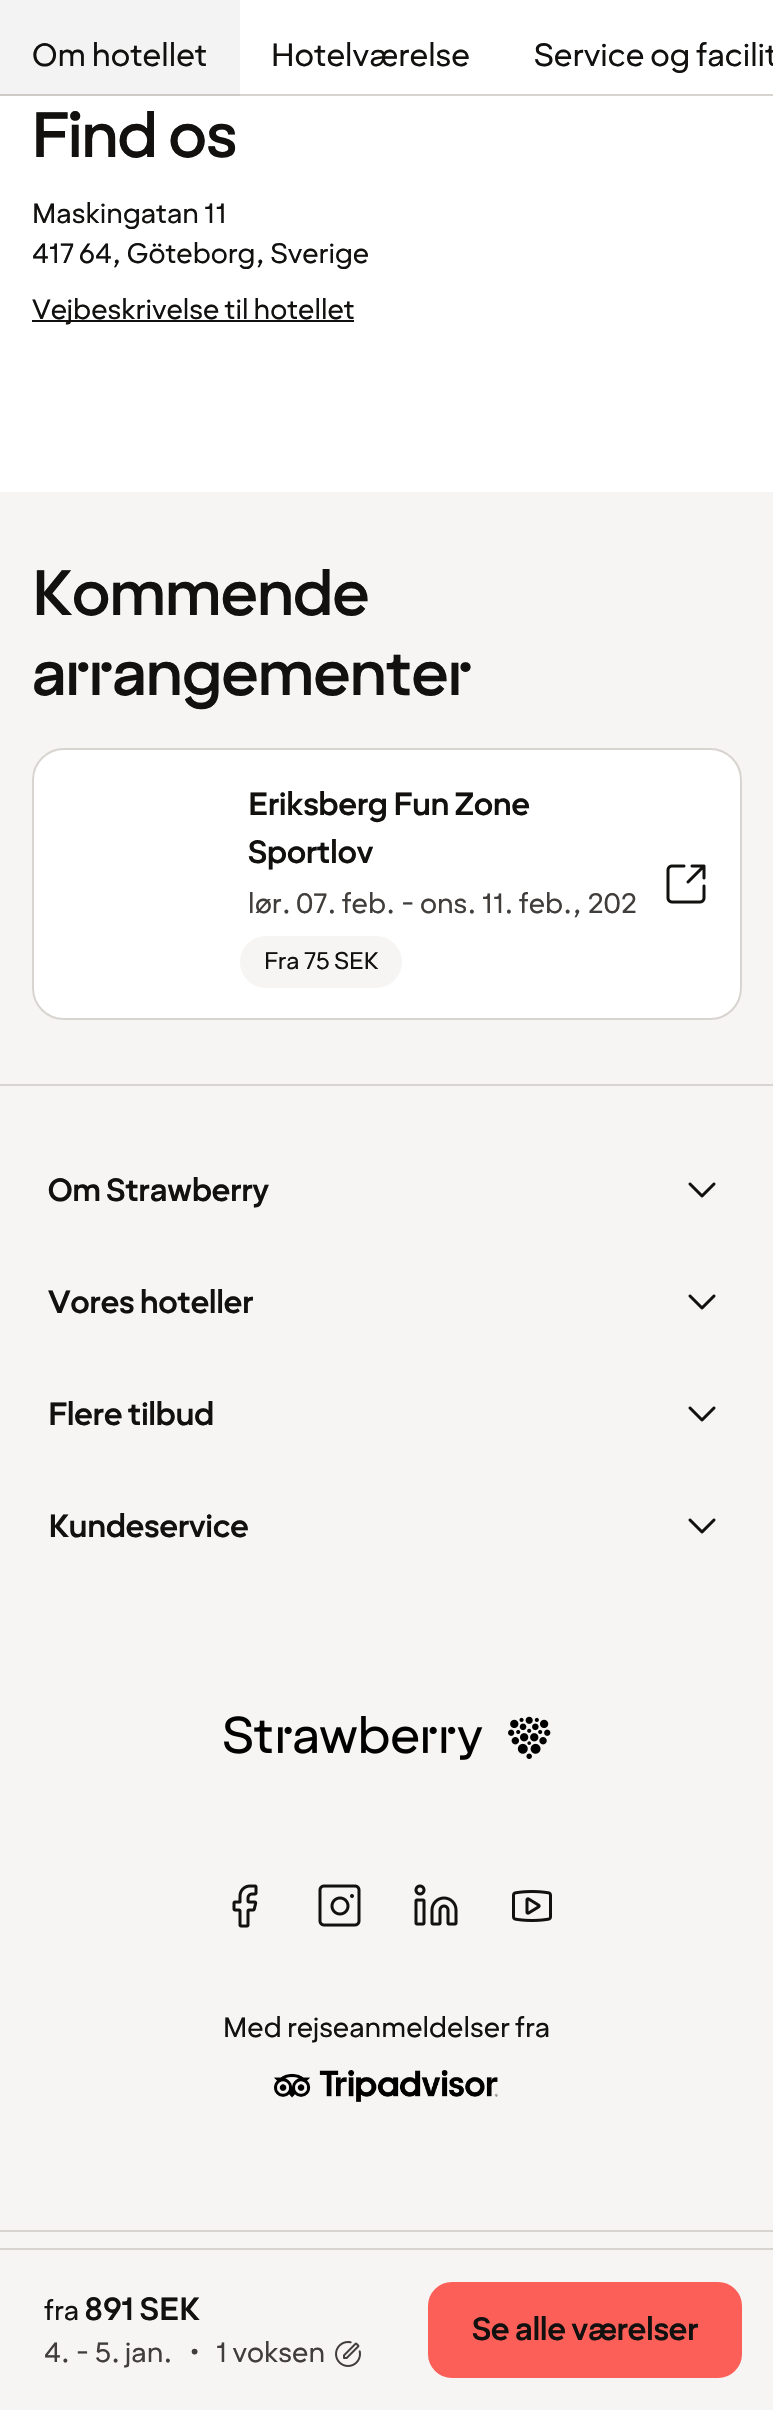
void draw(SkCanvas* canvas) {
    SkPaint paint;
    paint.setAntiAlias(true);
    canvas->clear(0xFFFFFFFF);
    paint.setColor(0xFFF3F3F3);
    canvas->drawRect(SkRect::MakeXYWH(0, 0, 240, 94), paint);
    paint.setColor(0xFFD8D4D0);
    canvas->drawRect(SkRect::MakeXYWH(240, 94, 533, 2), paint);
    paint.setColor(0xFFCECAC6);
    canvas->drawRect(SkRect::MakeXYWH(0, 94, 240, 2), paint);
    SkFont font1(fontMgr->matchFamilyStyle("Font", SkFontStyle::Normal()), 32);
    font1.setSubpixel(true);
    paint.setColor(0xFF121110);
    canvas->drawString("Om hotellet", 32, 66, font1, paint);
    canvas->drawString("Hotelværelse", 271, 66, font1, paint);
    canvas->drawString("Service og facilit", 534, 66, font1, paint);
    SkFont font2(fontMgr->matchFamilyStyle("Font", SkFontStyle(500, SkFontStyle::kNormal_Width, SkFontStyle::kUpright_Slant)), 64);
    font2.setSubpixel(true);
    canvas->drawString("Find os", 32, 157, font2, paint);
    SkFont font3(fontMgr->matchFamilyStyle("Font", SkFontStyle::Normal()), 28);
    font3.setSubpixel(true);
    canvas->drawString("Maskingatan 11", 32, 223, font3, paint);
    canvas->drawString("417 64, Göteborg, Sverige", 32, 263, font3, paint);
    canvas->drawRect(SkRect::MakeXYWH(32, 320, 322, 2), paint);
    canvas->drawString("Vejbeskrivelse til hotellet", 32, 319, font3, paint);
    paint.setColor(0xFFF7F5F3);
    canvas->drawRect(SkRect::MakeXYWH(0, 492, 773, 592), paint);
    paint.setColor(0xFF121110);
    canvas->drawString("Kommende", 32, 615, font2, paint);
    canvas->drawString("arrangementer", 32, 695, font2, paint);
    paint.setColor(0xFFFFFFFF);
    canvas->drawRoundRect(SkRect::MakeXYWH(33, 749, 708, 270), 31, 31, paint);
    paint.setStyle(SkPaint::kStroke_Style);
    paint.setStrokeWidth(2);
    paint.setColor(0xFFD8D4D0);
    canvas->drawRoundRect(SkRect::MakeXYWH(33, 749, 708, 270), 31, 31, paint);
    SkFont font4(fontMgr->matchFamilyStyle("Font", SkFontStyle::Bold()), 32);
    font4.setSubpixel(true);
    paint.setStyle(SkPaint::kFill_Style);
    paint.setColor(0xFF121110);
    canvas->drawString("Eriksberg Fun Zone", 248, 815, font4, paint);
    canvas->drawString("Sportlov", 248, 863, font4, paint);
    paint.setColor(0xFF403D3B);
    canvas->drawString("lør. 07. feb. - ons. 11. feb., 202", 248, 913, font3, paint);
    paint.setColor(0xFFF7F5F3);
    canvas->drawRoundRect(SkRect::MakeXYWH(240, 936, 162, 52), 26, 26, paint);
    SkFont font5(fontMgr->matchFamilyStyle("Font", SkFontStyle::Normal()), 24);
    font5.setSubpixel(true);
    paint.setColor(0xFF121110);
    canvas->drawString("Fra 75 SEK", 264, 969, font5, paint);
    canvas->drawImageRect(SkImages::DeferredFromEncodedData(SkData::MakeFromFileName("img1.png")), SkRect::MakeXYWH(666, 864, 40, 40), SkSamplingOptions());
    paint.setColor(0xFFF7F5F3);
    canvas->drawRect(SkRect::MakeXYWH(0, 2250, 773, 160), paint);
    paint.setColor(0xFFD8D4D0);
    canvas->drawRect(SkRect::MakeXYWH(0, 2248, 773, 2), paint);
    paint.setColor(0xFF121110);
    canvas->drawString("fra", 44, 2320, font3, paint);
    canvas->drawString("891 SEK", 84, 2320, font4, paint);
    paint.setColor(0xFF403D3B);
    canvas->drawString("4. - 5. jan.", 44, 2362, font3, paint);
    canvas->drawString("•", 189, 2362, font3, paint);
    canvas->drawString("1 voksen", 216, 2362, font3, paint);
    canvas->drawImageRect(SkImages::DeferredFromEncodedData(SkData::MakeFromFileName("img2.png")), SkRect::MakeXYWH(335, 2341, 26, 26), SkSamplingOptions());
    paint.setColor(0xFFFC5E58);
    canvas->drawRoundRect(SkRect::MakeXYWH(430, 2284, 310, 92), 22, 22, paint);
    paint.setStyle(SkPaint::kStroke_Style);
    paint.setStrokeWidth(4);
    canvas->drawRoundRect(SkRect::MakeXYWH(430, 2284, 310, 92), 22, 22, paint);
    paint.setStyle(SkPaint::kFill_Style);
    paint.setColor(0xFF121110);
    canvas->drawString("Se alle værelser", 472, 2340, font4, paint);
    paint.setColor(0xFFF7F5F3);
    canvas->drawRect(SkRect::MakeXYWH(0, 1086, 773, 1144), paint);
    paint.setColor(0xFFD8D4D0);
    canvas->drawRect(SkRect::MakeXYWH(0, 1084, 773, 2), paint);
    paint.setColor(0xFF121110);
    canvas->drawString("Om Strawberry", 48, 1201, font4, paint);
    canvas->drawImageRect(SkImages::DeferredFromEncodedData(SkData::MakeFromFileName("img3.png")), SkRect::MakeXYWH(688, 1182, 28, 16), SkSamplingOptions());
    canvas->drawString("Vores hoteller", 48, 1313, font4, paint);
    canvas->drawImageRect(SkImages::DeferredFromEncodedData(SkData::MakeFromFileName("img3.png")), SkRect::MakeXYWH(688, 1294, 28, 16), SkSamplingOptions());
    canvas->drawString("Flere tilbud", 48, 1425, font4, paint);
    canvas->drawImageRect(SkImages::DeferredFromEncodedData(SkData::MakeFromFileName("img3.png")), SkRect::MakeXYWH(688, 1406, 28, 16), SkSamplingOptions());
    canvas->drawString("Kundeservice", 48, 1537, font4, paint);
    canvas->drawImageRect(SkImages::DeferredFromEncodedData(SkData::MakeFromFileName("img3.png")), SkRect::MakeXYWH(688, 1518, 28, 16), SkSamplingOptions());
    canvas->drawImageRect(SkImages::DeferredFromEncodedData(SkData::MakeFromFileName("img4.png")), SkRect::MakeXYWH(224, 1716, 327, 44), SkSamplingOptions());
    canvas->drawImageRect(SkImages::DeferredFromEncodedData(SkData::MakeFromFileName("img5.png")), SkRect::MakeXYWH(232, 1884, 26, 44), SkSamplingOptions());
    canvas->drawImageRect(SkImages::DeferredFromEncodedData(SkData::MakeFromFileName("img6.png")), SkRect::MakeXYWH(318, 1884, 43, 43), SkSamplingOptions());
    canvas->drawImageRect(SkImages::DeferredFromEncodedData(SkData::MakeFromFileName("img7.png")), SkRect::MakeXYWH(414, 1884, 44, 42), SkSamplingOptions());
    canvas->drawImageRect(SkImages::DeferredFromEncodedData(SkData::MakeFromFileName("img8.png")), SkRect::MakeXYWH(512, 1890, 40, 32), SkSamplingOptions());
    canvas->drawString("Med rejseanmeldelser fra", 223, 2037, font3, paint);
    canvas->drawImageRect(SkImages::DeferredFromEncodedData(SkData::MakeFromFileName("img9.png")), SkRect::MakeXYWH(274, 2070, 224, 32), SkSamplingOptions());
    paint.setColor(0xFFF7F5F3);
    canvas->drawRect(SkRect::MakeXYWH(0, 2232, 773, 16), paint);
    paint.setColor(0xFFD8D4D0);
    canvas->drawRect(SkRect::MakeXYWH(0, 2230, 773, 2), paint);
}
